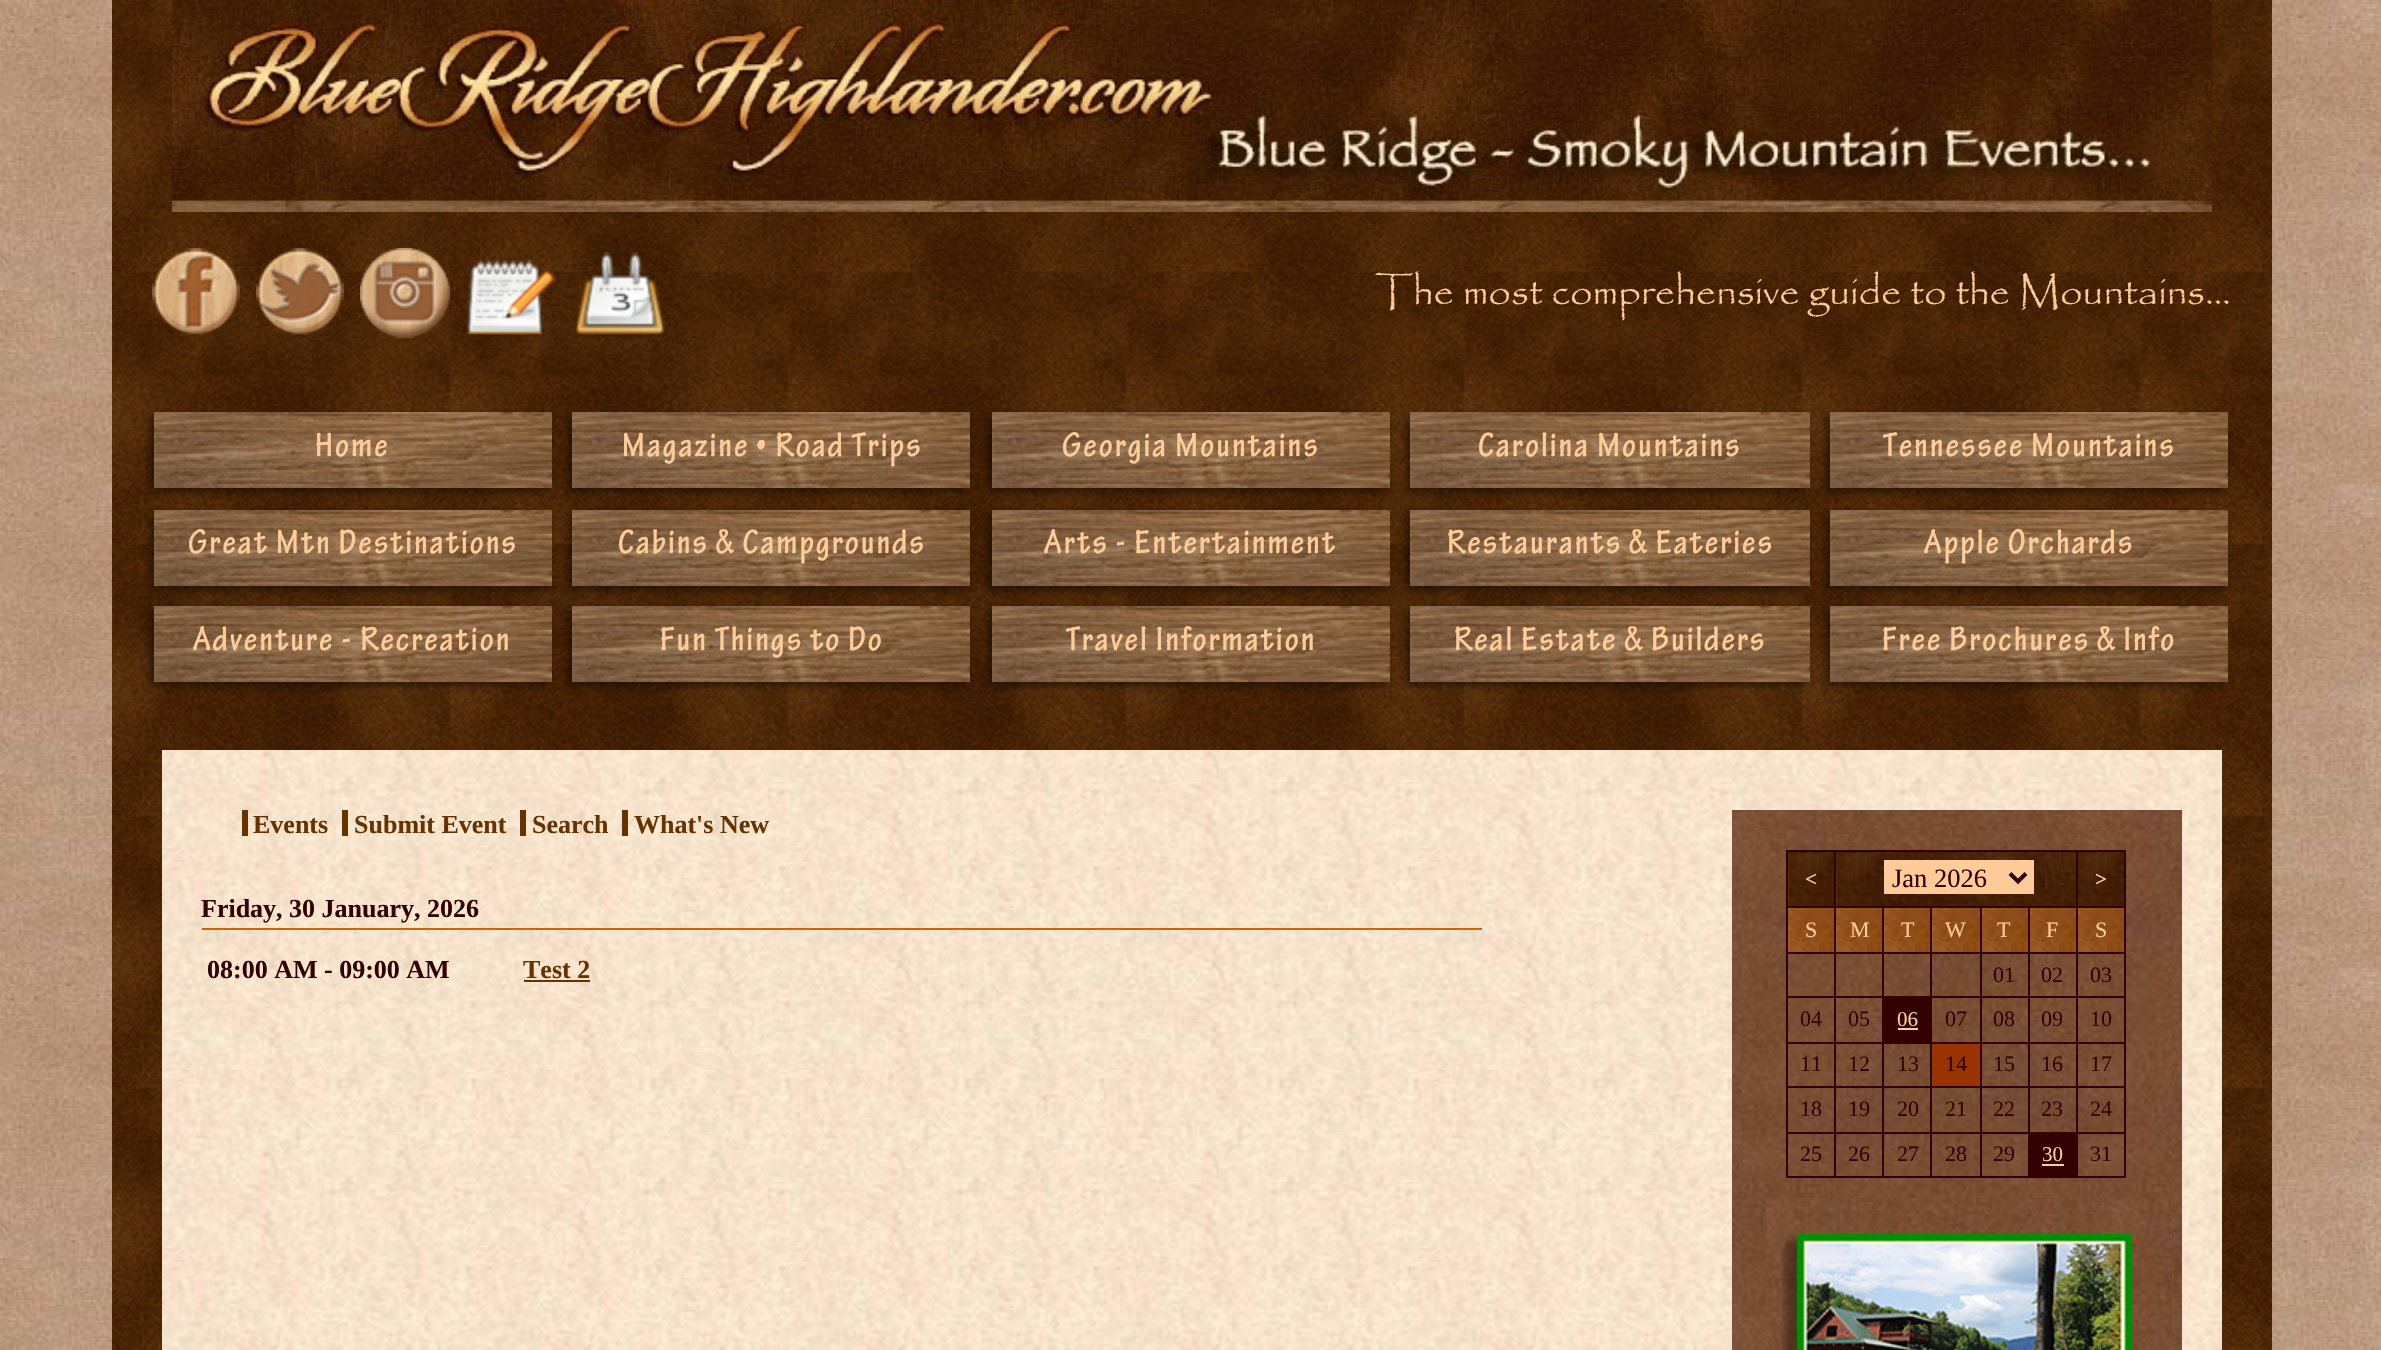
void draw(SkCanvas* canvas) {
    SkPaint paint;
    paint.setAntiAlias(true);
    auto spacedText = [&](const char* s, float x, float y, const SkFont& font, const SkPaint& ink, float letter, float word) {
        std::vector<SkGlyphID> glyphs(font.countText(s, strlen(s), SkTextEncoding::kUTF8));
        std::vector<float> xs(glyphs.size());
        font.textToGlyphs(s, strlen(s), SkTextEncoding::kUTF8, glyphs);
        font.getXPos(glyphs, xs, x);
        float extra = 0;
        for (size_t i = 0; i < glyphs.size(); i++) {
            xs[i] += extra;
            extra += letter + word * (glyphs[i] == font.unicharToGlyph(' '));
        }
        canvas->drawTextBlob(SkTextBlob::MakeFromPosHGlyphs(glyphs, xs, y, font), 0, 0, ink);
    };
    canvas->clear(0xFFFFFFFF);
    canvas->drawImageRect(SkImages::DeferredFromEncodedData(SkData::MakeFromFileName("img1.png")), SkRect::MakeXYWH(0, 0, 2381, 1350), SkSamplingOptions());
    canvas->drawImageRect(SkImages::DeferredFromEncodedData(SkData::MakeFromFileName("img2.png")), SkRect::MakeXYWH(112, 0, 2160, 1350), SkSamplingOptions());
    canvas->drawImageRect(SkImages::DeferredFromEncodedData(SkData::MakeFromFileName("img3.png")), SkRect::MakeXYWH(172, 0, 2040, 212), SkSamplingOptions());
    canvas->drawImageRect(SkImages::DeferredFromEncodedData(SkData::MakeFromFileName("img4.png")), SkRect::MakeXYWH(152, 248, 88, 87), SkSamplingOptions());
    canvas->drawImageRect(SkImages::DeferredFromEncodedData(SkData::MakeFromFileName("img5.png")), SkRect::MakeXYWH(256, 248, 88, 87), SkSamplingOptions());
    canvas->drawImageRect(SkImages::DeferredFromEncodedData(SkData::MakeFromFileName("img6.png")), SkRect::MakeXYWH(360, 248, 90, 90), SkSamplingOptions());
    canvas->drawImageRect(SkImages::DeferredFromEncodedData(SkData::MakeFromFileName("img7.png")), SkRect::MakeXYWH(466, 260, 90, 77), SkSamplingOptions());
    canvas->drawImageRect(SkImages::DeferredFromEncodedData(SkData::MakeFromFileName("img8.png")), SkRect::MakeXYWH(573, 252, 93, 86), SkSamplingOptions());
    SkFont font1(fontMgr->matchFamilyStyle("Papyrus", SkFontStyle::Normal()), 40);
    font1.setSubpixel(true);
    paint.setColor(0xFFFFCC99);
    canvas->drawString("The most comprehensive guide to the Mountains...", 1375, 304, font1, paint);
    paint.setColor(0x73000000);
    paint.setMaskFilter(SkMaskFilter::MakeBlur(kNormal_SkBlurStyle, 4));
    canvas->drawRect(SkRect::MakeXYWH(150, 416, 398, 76), paint);
    paint.setMaskFilter(nullptr);
    canvas->drawImageRect(SkImages::DeferredFromEncodedData(SkData::MakeFromFileName("img9.png")), SkRect::MakeXYWH(154, 412, 398, 76), SkSamplingOptions());
    SkFont font2(fontMgr->matchFamilyStyle("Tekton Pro", SkFontStyle::Bold()), 36);
    font2.setSubpixel(true);
    paint.setColor(0xFFFFCC99);
    spacedText("Home", 315, 456, font2, paint, 2, 0);
    paint.setColor(0x73000000);
    paint.setMaskFilter(SkMaskFilter::MakeBlur(kNormal_SkBlurStyle, 4));
    canvas->drawRect(SkRect::MakeXYWH(568, 416, 398, 76), paint);
    paint.setMaskFilter(nullptr);
    canvas->drawImageRect(SkImages::DeferredFromEncodedData(SkData::MakeFromFileName("img9.png")), SkRect::MakeXYWH(572, 412, 398, 76), SkSamplingOptions());
    paint.setColor(0xFFFFCC99);
    spacedText("Magazine • Road Trips", 622, 456, font2, paint, 2, 0);
    paint.setColor(0x73000000);
    paint.setMaskFilter(SkMaskFilter::MakeBlur(kNormal_SkBlurStyle, 4));
    canvas->drawRect(SkRect::MakeXYWH(988, 416, 398, 76), paint);
    paint.setMaskFilter(nullptr);
    canvas->drawImageRect(SkImages::DeferredFromEncodedData(SkData::MakeFromFileName("img9.png")), SkRect::MakeXYWH(992, 412, 398, 76), SkSamplingOptions());
    paint.setColor(0xFFFFCC99);
    spacedText("Georgia Mountains", 1062, 456, font2, paint, 2, 0);
    paint.setColor(0x73000000);
    paint.setMaskFilter(SkMaskFilter::MakeBlur(kNormal_SkBlurStyle, 4));
    canvas->drawRect(SkRect::MakeXYWH(1406, 416, 400, 76), paint);
    paint.setMaskFilter(nullptr);
    canvas->drawImageRect(SkImages::DeferredFromEncodedData(SkData::MakeFromFileName("img10.png")), SkRect::MakeXYWH(1410, 412, 400, 76), SkSamplingOptions());
    paint.setColor(0xFFFFCC99);
    spacedText("Carolina Mountains", 1478, 456, font2, paint, 2, 0);
    paint.setColor(0x73000000);
    paint.setMaskFilter(SkMaskFilter::MakeBlur(kNormal_SkBlurStyle, 4));
    canvas->drawRect(SkRect::MakeXYWH(1826, 416, 398, 76), paint);
    paint.setMaskFilter(nullptr);
    canvas->drawImageRect(SkImages::DeferredFromEncodedData(SkData::MakeFromFileName("img9.png")), SkRect::MakeXYWH(1830, 412, 398, 76), SkSamplingOptions());
    paint.setColor(0xFFFFCC99);
    spacedText("Tennessee Mountains", 1883, 456, font2, paint, 2, 0);
    paint.setColor(0x73000000);
    paint.setMaskFilter(SkMaskFilter::MakeBlur(kNormal_SkBlurStyle, 4));
    canvas->drawRect(SkRect::MakeXYWH(150, 514, 398, 76), paint);
    paint.setMaskFilter(nullptr);
    canvas->drawImageRect(SkImages::DeferredFromEncodedData(SkData::MakeFromFileName("img9.png")), SkRect::MakeXYWH(154, 510, 398, 76), SkSamplingOptions());
    paint.setColor(0xFFFFCC99);
    spacedText("Great Mtn Destinations", 188, 553, font2, paint, 2, 0);
    paint.setColor(0x73000000);
    paint.setMaskFilter(SkMaskFilter::MakeBlur(kNormal_SkBlurStyle, 4));
    canvas->drawRect(SkRect::MakeXYWH(568, 514, 398, 76), paint);
    paint.setMaskFilter(nullptr);
    canvas->drawImageRect(SkImages::DeferredFromEncodedData(SkData::MakeFromFileName("img9.png")), SkRect::MakeXYWH(572, 510, 398, 76), SkSamplingOptions());
    paint.setColor(0xFFFFCC99);
    spacedText("Cabins & Campgrounds", 618, 553, font2, paint, 2, 0);
    paint.setColor(0x73000000);
    paint.setMaskFilter(SkMaskFilter::MakeBlur(kNormal_SkBlurStyle, 4));
    canvas->drawRect(SkRect::MakeXYWH(988, 514, 398, 76), paint);
    paint.setMaskFilter(nullptr);
    canvas->drawImageRect(SkImages::DeferredFromEncodedData(SkData::MakeFromFileName("img9.png")), SkRect::MakeXYWH(992, 510, 398, 76), SkSamplingOptions());
    paint.setColor(0xFFFFCC99);
    spacedText("Arts - Entertainment", 1044, 553, font2, paint, 2, 0);
    paint.setColor(0x73000000);
    paint.setMaskFilter(SkMaskFilter::MakeBlur(kNormal_SkBlurStyle, 4));
    canvas->drawRect(SkRect::MakeXYWH(1406, 514, 400, 76), paint);
    paint.setMaskFilter(nullptr);
    canvas->drawImageRect(SkImages::DeferredFromEncodedData(SkData::MakeFromFileName("img10.png")), SkRect::MakeXYWH(1410, 510, 400, 76), SkSamplingOptions());
    paint.setColor(0xFFFFCC99);
    spacedText("Restaurants & Eateries", 1447, 553, font2, paint, 2, 0);
    paint.setColor(0x73000000);
    paint.setMaskFilter(SkMaskFilter::MakeBlur(kNormal_SkBlurStyle, 4));
    canvas->drawRect(SkRect::MakeXYWH(1826, 514, 398, 76), paint);
    paint.setMaskFilter(nullptr);
    canvas->drawImageRect(SkImages::DeferredFromEncodedData(SkData::MakeFromFileName("img9.png")), SkRect::MakeXYWH(1830, 510, 398, 76), SkSamplingOptions());
    paint.setColor(0xFFFFCC99);
    spacedText("Apple Orchards", 1924, 553, font2, paint, 2, 0);
    paint.setColor(0x73000000);
    paint.setMaskFilter(SkMaskFilter::MakeBlur(kNormal_SkBlurStyle, 4));
    canvas->drawRect(SkRect::MakeXYWH(150, 610, 398, 76), paint);
    paint.setMaskFilter(nullptr);
    canvas->drawImageRect(SkImages::DeferredFromEncodedData(SkData::MakeFromFileName("img9.png")), SkRect::MakeXYWH(154, 606, 398, 76), SkSamplingOptions());
    paint.setColor(0xFFFFCC99);
    spacedText("Adventure - Recreation", 193, 650, font2, paint, 2, 0);
    paint.setColor(0x73000000);
    paint.setMaskFilter(SkMaskFilter::MakeBlur(kNormal_SkBlurStyle, 4));
    canvas->drawRect(SkRect::MakeXYWH(568, 610, 398, 76), paint);
    paint.setMaskFilter(nullptr);
    canvas->drawImageRect(SkImages::DeferredFromEncodedData(SkData::MakeFromFileName("img9.png")), SkRect::MakeXYWH(572, 606, 398, 76), SkSamplingOptions());
    paint.setColor(0xFFFFCC99);
    spacedText("Fun Things to Do", 660, 650, font2, paint, 2, 0);
    paint.setColor(0x73000000);
    paint.setMaskFilter(SkMaskFilter::MakeBlur(kNormal_SkBlurStyle, 4));
    canvas->drawRect(SkRect::MakeXYWH(988, 610, 398, 76), paint);
    paint.setMaskFilter(nullptr);
    canvas->drawImageRect(SkImages::DeferredFromEncodedData(SkData::MakeFromFileName("img9.png")), SkRect::MakeXYWH(992, 606, 398, 76), SkSamplingOptions());
    paint.setColor(0xFFFFCC99);
    spacedText("Travel Information", 1066, 650, font2, paint, 2, 0);
    paint.setColor(0x73000000);
    paint.setMaskFilter(SkMaskFilter::MakeBlur(kNormal_SkBlurStyle, 4));
    canvas->drawRect(SkRect::MakeXYWH(1406, 610, 400, 76), paint);
    paint.setMaskFilter(nullptr);
    canvas->drawImageRect(SkImages::DeferredFromEncodedData(SkData::MakeFromFileName("img10.png")), SkRect::MakeXYWH(1410, 606, 400, 76), SkSamplingOptions());
    paint.setColor(0xFFFFCC99);
    spacedText("Real Estate & Builders", 1454, 650, font2, paint, 2, 0);
    paint.setColor(0x73000000);
    paint.setMaskFilter(SkMaskFilter::MakeBlur(kNormal_SkBlurStyle, 4));
    canvas->drawRect(SkRect::MakeXYWH(1826, 610, 398, 76), paint);
    paint.setMaskFilter(nullptr);
    canvas->drawImageRect(SkImages::DeferredFromEncodedData(SkData::MakeFromFileName("img9.png")), SkRect::MakeXYWH(1830, 606, 398, 76), SkSamplingOptions());
    paint.setColor(0xFFFFCC99);
    spacedText("Free Brochures & Info", 1882, 650, font2, paint, 2, 0);
    canvas->drawImageRect(SkImages::DeferredFromEncodedData(SkData::MakeFromFileName("img11.png")), SkRect::MakeXYWH(162, 750, 2060, 600), SkSamplingOptions());
    paint.setColor(0xFF663300);
    canvas->drawRect(SkRect::MakeXYWH(242, 810, 6, 26), paint);
    SkFont font3(fontMgr->matchFamilyStyle("Liberation Serif", SkFontStyle::Bold()), 26);
    font3.setSubpixel(true);
    canvas->drawString("Events", 253, 833, font3, paint);
    canvas->drawRect(SkRect::MakeXYWH(342, 810, 6, 26), paint);
    canvas->drawString("Submit Event", 354, 833, font3, paint);
    canvas->drawRect(SkRect::MakeXYWH(520, 810, 6, 26), paint);
    canvas->drawString("Search", 532, 833, font3, paint);
    canvas->drawRect(SkRect::MakeXYWH(622, 810, 6, 26), paint);
    canvas->drawString("What's New", 634, 833, font3, paint);
    paint.setColor(0xFFCC6600);
    canvas->drawRect(SkRect::MakeXYWH(202, 928, 1280, 2), paint);
    paint.setColor(0xFF330000);
    canvas->drawString("Friday, 30 January, 2026", 201, 917, font3, paint);
    canvas->drawString("08:00 AM - 09:00 AM", 207, 978, font3, paint);
    paint.setColor(0xFF663300);
    canvas->drawString("Test 2", 523, 978, font3, paint);
    canvas->drawRect(SkRect::MakeXYWH(524, 980, 66, 2), paint);
    canvas->drawImageRect(SkImages::DeferredFromEncodedData(SkData::MakeFromFileName("img12.png")), SkRect::MakeXYWH(1732, 810, 450, 540), SkSamplingOptions());
    canvas->drawImageRect(SkImages::DeferredFromEncodedData(SkData::MakeFromFileName("img13.png")), SkRect::MakeXYWH(1742, 830, 430, 520), SkSamplingOptions());
    canvas->drawImageRect(SkImages::DeferredFromEncodedData(SkData::MakeFromFileName("img14.png")), SkRect::MakeXYWH(1788, 852, 46, 54), SkSamplingOptions());
    paint.setColor(0xFF330000);
    canvas->drawRect(SkRect::MakeXYWH(2076, 850, 50, 2), paint);
    canvas->drawRect(SkRect::MakeXYWH(2076, 906, 50, 2), paint);
    canvas->drawRect(SkRect::MakeXYWH(2076, 952, 50, 2), paint);
    canvas->drawRect(SkRect::MakeXYWH(2076, 996, 50, 2), paint);
    canvas->drawRect(SkRect::MakeXYWH(2076, 1042, 50, 2), paint);
    canvas->drawRect(SkRect::MakeXYWH(2076, 1086, 50, 2), paint);
    canvas->drawRect(SkRect::MakeXYWH(2076, 1132, 50, 2), paint);
    canvas->drawRect(SkRect::MakeXYWH(2124, 1132, 2, 46), paint);
    canvas->drawRect(SkRect::MakeXYWH(2076, 1176, 50, 2), paint);
    canvas->drawRect(SkRect::MakeXYWH(2076, 1132, 2, 46), paint);
    canvas->drawRect(SkRect::MakeXYWH(2076, 1086, 2, 48), paint);
    canvas->drawRect(SkRect::MakeXYWH(2028, 1086, 50, 2), paint);
    canvas->drawRect(SkRect::MakeXYWH(2076, 1042, 2, 46), paint);
    canvas->drawRect(SkRect::MakeXYWH(2028, 1042, 50, 2), paint);
    canvas->drawRect(SkRect::MakeXYWH(2076, 996, 2, 48), paint);
    canvas->drawRect(SkRect::MakeXYWH(2028, 996, 50, 2), paint);
    canvas->drawRect(SkRect::MakeXYWH(2076, 952, 2, 46), paint);
    canvas->drawRect(SkRect::MakeXYWH(2028, 952, 50, 2), paint);
    canvas->drawRect(SkRect::MakeXYWH(2076, 906, 2, 48), paint);
    canvas->drawRect(SkRect::MakeXYWH(2028, 906, 50, 2), paint);
    canvas->drawRect(SkRect::MakeXYWH(2076, 850, 2, 58), paint);
    canvas->drawRect(SkRect::MakeXYWH(1834, 850, 244, 2), paint);
    canvas->drawRect(SkRect::MakeXYWH(2028, 1132, 48, 44), paint);
    canvas->drawRect(SkRect::MakeXYWH(1980, 1132, 50, 2), paint);
    canvas->drawRect(SkRect::MakeXYWH(2028, 1086, 2, 48), paint);
    canvas->drawRect(SkRect::MakeXYWH(1980, 1086, 50, 2), paint);
    canvas->drawRect(SkRect::MakeXYWH(2028, 1042, 2, 46), paint);
    canvas->drawRect(SkRect::MakeXYWH(1980, 1042, 50, 2), paint);
    canvas->drawRect(SkRect::MakeXYWH(2028, 996, 2, 48), paint);
    canvas->drawRect(SkRect::MakeXYWH(1980, 996, 50, 2), paint);
    canvas->drawRect(SkRect::MakeXYWH(2028, 952, 2, 46), paint);
    canvas->drawRect(SkRect::MakeXYWH(1980, 952, 50, 2), paint);
    canvas->drawRect(SkRect::MakeXYWH(2028, 906, 2, 48), paint);
    canvas->drawRect(SkRect::MakeXYWH(1980, 906, 50, 2), paint);
    canvas->drawRect(SkRect::MakeXYWH(1980, 1176, 98, 2), paint);
    canvas->drawRect(SkRect::MakeXYWH(1980, 1132, 2, 46), paint);
    canvas->drawRect(SkRect::MakeXYWH(1930, 1132, 52, 2), paint);
    canvas->drawRect(SkRect::MakeXYWH(1980, 1086, 2, 48), paint);
    canvas->drawRect(SkRect::MakeXYWH(1930, 1086, 52, 2), paint);
    canvas->drawRect(SkRect::MakeXYWH(1980, 1042, 2, 46), paint);
    canvas->drawRect(SkRect::MakeXYWH(1930, 1042, 52, 2), paint);
    canvas->drawRect(SkRect::MakeXYWH(1980, 996, 2, 48), paint);
    canvas->drawRect(SkRect::MakeXYWH(1882, 996, 100, 2), paint);
    canvas->drawRect(SkRect::MakeXYWH(1980, 952, 2, 46), paint);
    canvas->drawRect(SkRect::MakeXYWH(1930, 952, 52, 2), paint);
    canvas->drawRect(SkRect::MakeXYWH(1980, 906, 2, 48), paint);
    canvas->drawRect(SkRect::MakeXYWH(1930, 906, 52, 2), paint);
    canvas->drawRect(SkRect::MakeXYWH(1930, 952, 2, 46), paint);
    canvas->drawRect(SkRect::MakeXYWH(1882, 952, 50, 2), paint);
    canvas->drawRect(SkRect::MakeXYWH(1930, 906, 2, 48), paint);
    canvas->drawRect(SkRect::MakeXYWH(1882, 906, 50, 2), paint);
    canvas->drawRect(SkRect::MakeXYWH(1930, 1176, 52, 2), paint);
    canvas->drawRect(SkRect::MakeXYWH(1930, 1132, 2, 46), paint);
    canvas->drawRect(SkRect::MakeXYWH(1882, 1132, 50, 2), paint);
    canvas->drawRect(SkRect::MakeXYWH(1930, 1086, 2, 48), paint);
    canvas->drawRect(SkRect::MakeXYWH(1882, 1086, 50, 2), paint);
    canvas->drawRect(SkRect::MakeXYWH(1930, 1042, 2, 46), paint);
    canvas->drawRect(SkRect::MakeXYWH(1882, 1042, 50, 2), paint);
    canvas->drawRect(SkRect::MakeXYWH(1882, 1176, 50, 2), paint);
    canvas->drawRect(SkRect::MakeXYWH(1882, 1132, 2, 46), paint);
    canvas->drawRect(SkRect::MakeXYWH(1834, 1132, 50, 2), paint);
    canvas->drawRect(SkRect::MakeXYWH(1882, 1086, 2, 48), paint);
    canvas->drawRect(SkRect::MakeXYWH(1834, 1086, 50, 2), paint);
    canvas->drawRect(SkRect::MakeXYWH(1882, 1042, 2, 46), paint);
    canvas->drawRect(SkRect::MakeXYWH(1834, 1042, 50, 2), paint);
    canvas->drawRect(SkRect::MakeXYWH(1882, 996, 2, 48), paint);
    canvas->drawRect(SkRect::MakeXYWH(1834, 996, 50, 2), paint);
    canvas->drawRect(SkRect::MakeXYWH(1882, 952, 2, 46), paint);
    canvas->drawRect(SkRect::MakeXYWH(1834, 952, 50, 2), paint);
    canvas->drawRect(SkRect::MakeXYWH(1882, 906, 2, 48), paint);
    canvas->drawRect(SkRect::MakeXYWH(1834, 906, 50, 2), paint);
    canvas->drawRect(SkRect::MakeXYWH(1834, 1176, 50, 2), paint);
    canvas->drawRect(SkRect::MakeXYWH(1834, 1132, 2, 46), paint);
    canvas->drawRect(SkRect::MakeXYWH(1786, 1132, 50, 2), paint);
    canvas->drawRect(SkRect::MakeXYWH(1834, 1086, 2, 48), paint);
    canvas->drawRect(SkRect::MakeXYWH(1786, 1086, 50, 2), paint);
    canvas->drawRect(SkRect::MakeXYWH(1834, 1042, 2, 46), paint);
    canvas->drawRect(SkRect::MakeXYWH(1786, 1042, 50, 2), paint);
    canvas->drawRect(SkRect::MakeXYWH(1834, 996, 2, 48), paint);
    canvas->drawRect(SkRect::MakeXYWH(1786, 996, 50, 2), paint);
    canvas->drawRect(SkRect::MakeXYWH(1834, 952, 2, 46), paint);
    canvas->drawRect(SkRect::MakeXYWH(1786, 952, 50, 2), paint);
    canvas->drawRect(SkRect::MakeXYWH(1834, 906, 2, 48), paint);
    canvas->drawRect(SkRect::MakeXYWH(1786, 906, 50, 2), paint);
    canvas->drawRect(SkRect::MakeXYWH(1834, 850, 2, 58), paint);
    canvas->drawRect(SkRect::MakeXYWH(1786, 850, 50, 2), paint);
    canvas->drawRect(SkRect::MakeXYWH(1786, 1176, 50, 2), paint);
    canvas->drawRect(SkRect::MakeXYWH(1786, 1132, 2, 46), paint);
    canvas->drawRect(SkRect::MakeXYWH(1786, 1086, 2, 48), paint);
    canvas->drawRect(SkRect::MakeXYWH(1786, 1042, 2, 46), paint);
    canvas->drawRect(SkRect::MakeXYWH(1786, 996, 2, 48), paint);
    canvas->drawRect(SkRect::MakeXYWH(1786, 952, 2, 46), paint);
    canvas->drawRect(SkRect::MakeXYWH(1786, 906, 2, 48), paint);
    canvas->drawRect(SkRect::MakeXYWH(1786, 850, 2, 58), paint);
    SkFont font4(fontMgr->matchFamilyStyle("Liberation Serif", SkFontStyle::Bold()), 21);
    font4.setSubpixel(true);
    paint.setColor(0xFFFFCC99);
    canvas->drawString("<", 1805, 886, font4, paint);
    canvas->drawImageRect(SkImages::DeferredFromEncodedData(SkData::MakeFromFileName("img15.png")), SkRect::MakeXYWH(1836, 852, 240, 54), SkSamplingOptions());
    canvas->drawRect(SkRect::MakeXYWH(1884, 860, 150, 34), paint);
    paint.setStyle(SkPaint::kStroke_Style);
    paint.setStrokeWidth(4);
    paint.setColor(0xFF330000);
    canvas->drawPath(SkPathBuilder().moveTo(2010, 873.5f).lineTo(2018, 881.5f).lineTo(2026, 873.5f).detach(), paint);
    SkFont font5(fontMgr->matchFamilyStyle("Liberation Serif", SkFontStyle::Normal()), 26.5f);
    font5.setSubpixel(true);
    paint.setStyle(SkPaint::kFill_Style);
    canvas->drawString("Jan 2026", 1892, 887, font5, paint);
    canvas->drawImageRect(SkImages::DeferredFromEncodedData(SkData::MakeFromFileName("img16.png")), SkRect::MakeXYWH(2078, 852, 46, 54), SkSamplingOptions());
    canvas->drawRect(SkRect::MakeXYWH(2124, 1086, 2, 48), paint);
    canvas->drawRect(SkRect::MakeXYWH(2124, 1042, 2, 46), paint);
    canvas->drawRect(SkRect::MakeXYWH(2124, 996, 2, 48), paint);
    canvas->drawRect(SkRect::MakeXYWH(2124, 952, 2, 46), paint);
    canvas->drawRect(SkRect::MakeXYWH(2124, 906, 2, 48), paint);
    canvas->drawRect(SkRect::MakeXYWH(2124, 850, 2, 58), paint);
    paint.setColor(0xFFFFCC99);
    canvas->drawString(">", 2095, 886, font4, paint);
    canvas->drawImageRect(SkImages::DeferredFromEncodedData(SkData::MakeFromFileName("img17.png")), SkRect::MakeXYWH(1788, 908, 46, 44), SkSamplingOptions());
    SkFont font6(fontMgr->matchFamilyStyle("Liberation Serif", SkFontStyle::Normal()), 22);
    font6.setSubpixel(true);
    canvas->drawString("S", 1805, 937, font6, paint);
    canvas->drawImageRect(SkImages::DeferredFromEncodedData(SkData::MakeFromFileName("img17.png")), SkRect::MakeXYWH(1836, 908, 46, 44), SkSamplingOptions());
    canvas->drawString("M", 1850, 937, font6, paint);
    canvas->drawImageRect(SkImages::DeferredFromEncodedData(SkData::MakeFromFileName("img17.png")), SkRect::MakeXYWH(1884, 908, 46, 44), SkSamplingOptions());
    canvas->drawString("T", 1901, 937, font6, paint);
    canvas->drawImageRect(SkImages::DeferredFromEncodedData(SkData::MakeFromFileName("img18.png")), SkRect::MakeXYWH(1932, 908, 48, 44), SkSamplingOptions());
    canvas->drawString("W", 1945, 937, font6, paint);
    canvas->drawImageRect(SkImages::DeferredFromEncodedData(SkData::MakeFromFileName("img19.png")), SkRect::MakeXYWH(1982, 908, 46, 44), SkSamplingOptions());
    canvas->drawString("T", 1997, 937, font6, paint);
    canvas->drawImageRect(SkImages::DeferredFromEncodedData(SkData::MakeFromFileName("img19.png")), SkRect::MakeXYWH(2030, 908, 46, 44), SkSamplingOptions());
    canvas->drawString("F", 2046, 937, font6, paint);
    canvas->drawImageRect(SkImages::DeferredFromEncodedData(SkData::MakeFromFileName("img19.png")), SkRect::MakeXYWH(2078, 908, 46, 44), SkSamplingOptions());
    canvas->drawString("S", 2095, 937, font6, paint);
    paint.setColor(0xFF330000);
    canvas->drawString("01", 1993, 982, font6, paint);
    canvas->drawString("02", 2041, 982, font6, paint);
    canvas->drawString("03", 2090, 982, font6, paint);
    canvas->drawString("04", 1800, 1026, font6, paint);
    canvas->drawString("05", 1848, 1026, font6, paint);
    canvas->drawRect(SkRect::MakeXYWH(1884, 998, 48, 44), paint);
    SkFont font7(fontMgr->matchFamilyStyle("Liberation Serif", SkFontStyle::Normal()), 21);
    font7.setSubpixel(true);
    paint.setColor(0xFFFFCC99);
    canvas->drawString("06", 1897, 1026, font7, paint);
    canvas->drawRect(SkRect::MakeXYWH(1898, 1028, 20, 2), paint);
    paint.setColor(0xFF330000);
    canvas->drawString("07", 1945, 1026, font6, paint);
    canvas->drawString("08", 1993, 1026, font6, paint);
    canvas->drawString("09", 2041, 1026, font6, paint);
    canvas->drawString("10", 2090, 1026, font6, paint);
    canvas->drawString("11", 1800, 1071, font6, paint);
    canvas->drawString("12", 1848, 1071, font6, paint);
    canvas->drawString("13", 1897, 1071, font6, paint);
    paint.setColor(0xFF993300);
    canvas->drawRect(SkRect::MakeXYWH(1932, 1044, 48, 42), paint);
    paint.setColor(0xFF330000);
    canvas->drawString("14", 1945, 1071, font6, paint);
    canvas->drawString("15", 1993, 1071, font6, paint);
    canvas->drawString("16", 2041, 1071, font6, paint);
    canvas->drawString("17", 2090, 1071, font6, paint);
    canvas->drawString("18", 1800, 1116, font6, paint);
    canvas->drawString("19", 1848, 1116, font6, paint);
    canvas->drawString("20", 1897, 1116, font6, paint);
    canvas->drawString("21", 1945, 1116, font6, paint);
    canvas->drawString("22", 1993, 1116, font6, paint);
    canvas->drawString("23", 2041, 1116, font6, paint);
    canvas->drawString("24", 2090, 1116, font6, paint);
    canvas->drawString("25", 1800, 1161, font6, paint);
    canvas->drawString("26", 1848, 1161, font6, paint);
    canvas->drawString("27", 1897, 1161, font6, paint);
    canvas->drawString("28", 1945, 1161, font6, paint);
    canvas->drawString("29", 1993, 1161, font6, paint);
    paint.setColor(0xFFFFCC99);
    canvas->drawString("30", 2042, 1161, font7, paint);
    canvas->drawRect(SkRect::MakeXYWH(2042, 1164, 22, 2), paint);
    paint.setColor(0xFF330000);
    canvas->drawString("31", 2090, 1161, font6, paint);
    canvas->drawImageRect(SkImages::DeferredFromEncodedData(SkData::MakeFromFileName("img20.png")), SkRect::MakeXYWH(1766, 1198, 380, 152), SkSamplingOptions());
}
